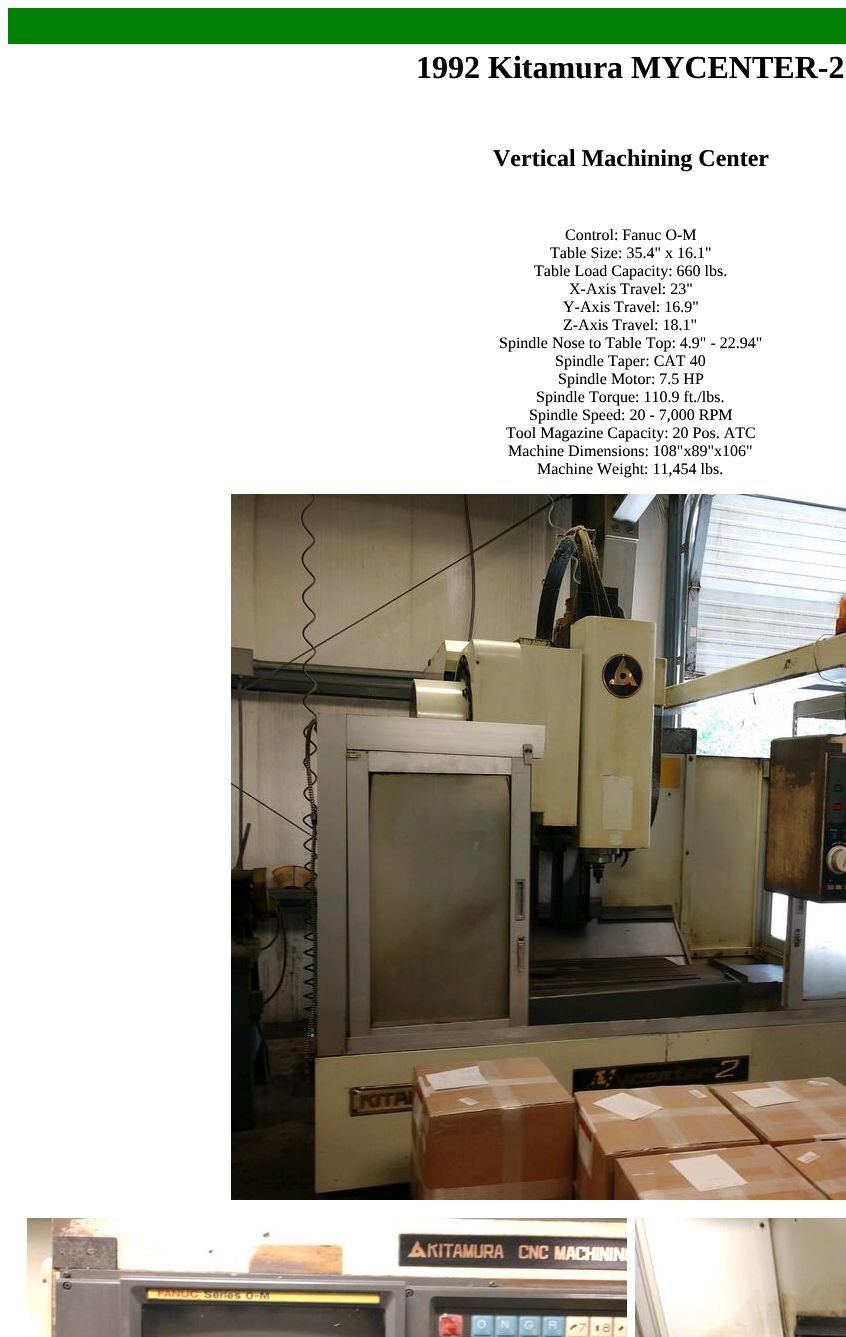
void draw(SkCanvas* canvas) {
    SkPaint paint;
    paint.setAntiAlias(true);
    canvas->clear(0xFFFFFFFF);
    paint.setColor(0xFF008000);
    canvas->drawRect(SkRect::MakeXYWH(8, 8, 838, 36), paint);
    SkFont font1(fontMgr->matchFamilyStyle("Liberation Serif", SkFontStyle::Bold()), 32);
    font1.setSubpixel(true);
    paint.setColor(0xFF000000);
    canvas->drawString("1992 Kitamura MYCENTER-2", 416, 78, font1, paint);
    SkFont font2(fontMgr->matchFamilyStyle("Liberation Serif", SkFontStyle::Bold()), 24);
    font2.setSubpixel(true);
    canvas->drawString("Vertical Machining Center", 493, 166, font2, paint);
    SkFont font3(fontMgr->matchFamilyStyle("Liberation Serif", SkFontStyle::Normal()), 16);
    font3.setSubpixel(true);
    canvas->drawString("Control: Fanuc O-M", 565, 240, font3, paint);
    canvas->drawString("Table Size: 35.4\" x 16.1\"", 550, 258, font3, paint);
    canvas->drawString("Table Load Capacity: 660 lbs.", 534, 276, font3, paint);
    canvas->drawString("X-Axis Travel: 23\"", 569, 294, font3, paint);
    canvas->drawString("Y-Axis Travel: 16.9\"", 563, 312, font3, paint);
    canvas->drawString("Z-Axis Travel: 18.1\"", 563, 330, font3, paint);
    canvas->drawString("Spindle Nose to Table Top: 4.9\" - 22.94\"", 499, 348, font3, paint);
    canvas->drawString("Spindle Taper: CAT 40", 555, 366, font3, paint);
    canvas->drawString("Spindle Motor: 7.5 HP", 558, 384, font3, paint);
    canvas->drawString("Spindle Torque: 110.9 ft./lbs.", 536, 402, font3, paint);
    canvas->drawString("Spindle Speed: 20 - 7,000 RPM", 529, 420, font3, paint);
    canvas->drawString("Tool Magazine Capacity: 20 Pos. ATC", 506, 438, font3, paint);
    canvas->drawString("Machine Dimensions: 108\"x89\"x106\"", 508, 456, font3, paint);
    canvas->drawString("Machine Weight: 11,454 lbs.", 537, 474, font3, paint);
    canvas->drawImageRect(SkImages::DeferredFromEncodedData(SkData::MakeFromFileName("img1.png")), SkRect::MakeXYWH(231, 494, 615, 706), SkSamplingOptions());
    canvas->drawImageRect(SkImages::DeferredFromEncodedData(SkData::MakeFromFileName("img2.png")), SkRect::MakeXYWH(27, 1218, 600, 119), SkSamplingOptions());
    canvas->drawImageRect(SkImages::DeferredFromEncodedData(SkData::MakeFromFileName("img3.png")), SkRect::MakeXYWH(635, 1218, 211, 119), SkSamplingOptions());
}
